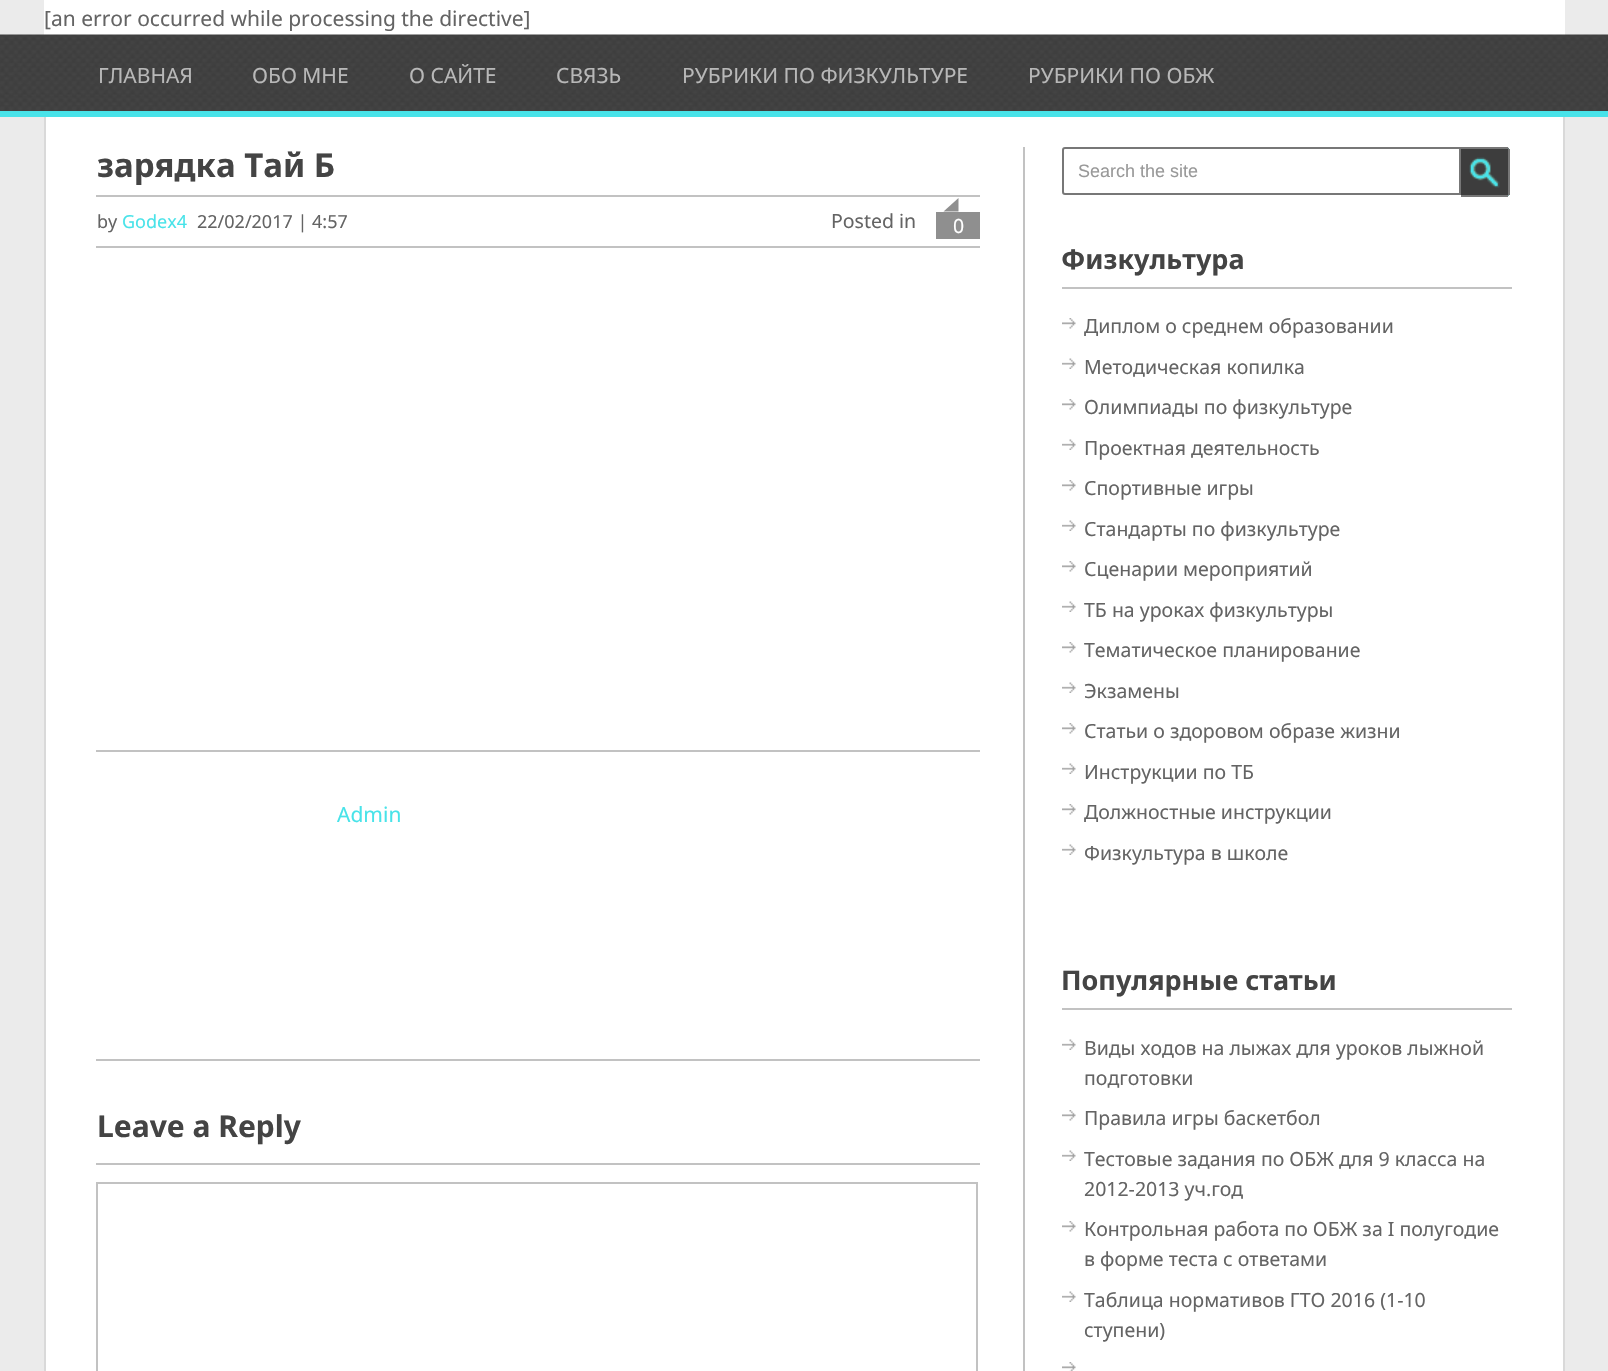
void draw(SkCanvas* canvas) {
    SkPaint paint;
    paint.setAntiAlias(true);
    canvas->clear(0xFFEBEBEB);
    paint.setColor(0xFFFFFFFF);
    canvas->drawRect(SkRect::MakeXYWH(44, 0, 1521, 1371), paint);
    SkFont font1(fontMgr->matchFamilyStyle("Noto Sans", SkFontStyle::Normal()), 21);
    font1.setSubpixel(true);
    paint.setColor(0xFF646464);
    canvas->drawString("[an error occurred while processing the directive]", 44, 26, font1, paint);
    canvas->drawImageRect(SkImages::DeferredFromEncodedData(SkData::MakeFromFileName("img1.png")), SkRect::MakeXYWH(0, 34, 1608, 77), SkSamplingOptions());
    paint.setColor(0xFF48E3E9);
    canvas->drawRect(SkRect::MakeXYWH(0, 111, 1608, 6), paint);
    paint.setColor(0xFFB8B8B8);
    canvas->drawString("ГЛАВНАЯ", 98, 83, font1, paint);
    canvas->drawString("ОБО МНЕ", 252, 83, font1, paint);
    canvas->drawString("О САЙТЕ", 409, 83, font1, paint);
    canvas->drawString("СВЯЗЬ", 556, 83, font1, paint);
    canvas->drawString("РУБРИКИ ПО ФИЗКУЛЬТУРЕ", 682, 83, font1, paint);
    canvas->drawString("РУБРИКИ ПО ОБЖ", 1028, 83, font1, paint);
    paint.setColor(0xFFD9D9D9);
    canvas->drawRect(SkRect::MakeXYWH(1563, 117, 2, 1254), paint);
    canvas->drawRect(SkRect::MakeXYWH(44, 117, 2, 1254), paint);
    paint.setColor(0xFFC2C2C2);
    canvas->drawRect(SkRect::MakeXYWH(1023, 147, 2, 1224), paint);
    canvas->drawRect(SkRect::MakeXYWH(96, 750, 884, 2), paint);
    SkFont font2(fontMgr->matchFamilyStyle("Noto Sans", SkFontStyle::Bold()), 33);
    font2.setSubpixel(true);
    paint.setColor(0xFF444444);
    canvas->drawString("зарядка Тай Б", 97, 177, font2, paint);
    paint.setColor(0xFFC2C2C2);
    canvas->drawRect(SkRect::MakeXYWH(96, 195, 884, 2), paint);
    canvas->drawRect(SkRect::MakeXYWH(96, 246, 884, 2), paint);
    SkFont font3(fontMgr->matchFamilyStyle("Noto Sans", SkFontStyle::Normal()), 18);
    font3.setSubpixel(true);
    paint.setColor(0xFF646464);
    canvas->drawString("by", 97, 228, font3, paint);
    paint.setColor(0xFF48E3E9);
    canvas->drawString("Godex4", 122, 228, font3, paint);
    paint.setColor(0xFF646464);
    canvas->drawString("22/02/2017 | 4:57", 197, 228, font3, paint);
    SkFont font4(fontMgr->matchFamilyStyle("Noto Sans", SkFontStyle::Normal()), 19.5f);
    font4.setSubpixel(true);
    canvas->drawString("Posted in", 831, 228, font4, paint);
    paint.setColor(0xFF8F8F8F);
    canvas->drawRect(SkRect::MakeXYWH(936, 212, 44, 27), paint);
    canvas->drawPath(SkPathBuilder().moveTo(958.5f, 211.5f).lineTo(943.5f, 211.5f).lineTo(958.5f, 198).close().detach(), paint);
    paint.setColor(0xFFFFFFFF);
    canvas->drawString("0", 953, 233, font4, paint);
    paint.setColor(0xFFC2C2C2);
    canvas->drawRect(SkRect::MakeXYWH(96, 1059, 884, 2), paint);
    paint.setColor(0xFF48E3E9);
    canvas->drawString("Admin", 337, 822, font1, paint);
    paint.setColor(0xFFC2C2C2);
    canvas->drawRect(SkRect::MakeXYWH(96, 1163, 884, 2), paint);
    SkFont font5(fontMgr->matchFamilyStyle("Noto Sans", SkFontStyle::Bold()), 30);
    font5.setSubpixel(true);
    paint.setColor(0xFF444444);
    canvas->drawString("Leave a Reply", 97, 1137, font5, paint);
    paint.setStyle(SkPaint::kStroke_Style);
    paint.setStrokeWidth(2);
    paint.setColor(0xFFC2C2C2);
    canvas->drawRect(SkRect::MakeXYWH(97, 1183, 880, 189), paint);
    paint.setColor(0xFF777777);
    canvas->drawPath(SkPathBuilder().moveTo(1065, 148).lineTo(1460, 148).lineTo(1460, 194).lineTo(1065, 194).cubicTo(1064, 194, 1063, 193, 1063, 192).lineTo(1063, 150).cubicTo(1063, 149, 1064, 148, 1065, 148).close().detach(), paint);
    SkFont font6(fontMgr->matchFamilyStyle("Liberation Sans", SkFontStyle::Normal()), 18);
    font6.setSubpixel(true);
    paint.setStyle(SkPaint::kFill_Style);
    paint.setColor(0xFF999999);
    canvas->drawString("Search the site", 1078, 177, font6, paint);
    paint.setColor(0xFF48E3E9);
    canvas->drawPath(SkPathBuilder().moveTo(1461, 147).lineTo(1506, 147).cubicTo(1507.5f, 147, 1509, 148.5f, 1509, 150).lineTo(1509, 194).cubicTo(1509, 195.5f, 1507.5f, 197, 1506, 197).lineTo(1461, 197).close().detach(), paint);
    canvas->drawImageRect(SkImages::DeferredFromEncodedData(SkData::MakeFromFileName("img2.png")), SkRect::MakeXYWH(1461, 147, 48, 49), SkSamplingOptions());
    paint.setColor(0xFF777777);
    canvas->drawRect(SkRect::MakeXYWH(1461, 147, 47, 2), paint);
    canvas->drawRect(SkRect::MakeXYWH(1508, 149, 2, 46), paint);
    canvas->drawRect(SkRect::MakeXYWH(1461, 195, 47, 2), paint);
    paint.setColor(0xFFC2C2C2);
    canvas->drawRect(SkRect::MakeXYWH(1062, 287, 450, 2), paint);
    SkFont font7(fontMgr->matchFamilyStyle("Noto Sans", SkFontStyle::Bold()), 27);
    font7.setSubpixel(true);
    paint.setColor(0xFF444444);
    canvas->drawString("Физкультура", 1061, 269, font7, paint);
    canvas->drawImageRect(SkImages::DeferredFromEncodedData(SkData::MakeFromFileName("img3.png")), SkRect::MakeXYWH(1062, 318, 14, 11), SkSamplingOptions());
    paint.setColor(0xFF646464);
    canvas->drawString("Диплом о среднем образовании", 1084, 333, font4, paint);
    canvas->drawImageRect(SkImages::DeferredFromEncodedData(SkData::MakeFromFileName("img4.png")), SkRect::MakeXYWH(1062, 358, 14, 11), SkSamplingOptions());
    canvas->drawString("Методическая копилка", 1084, 374, font4, paint);
    canvas->drawImageRect(SkImages::DeferredFromEncodedData(SkData::MakeFromFileName("img3.png")), SkRect::MakeXYWH(1062, 399, 14, 11), SkSamplingOptions());
    canvas->drawString("Олимпиады по физкультуре", 1084, 414, font4, paint);
    canvas->drawImageRect(SkImages::DeferredFromEncodedData(SkData::MakeFromFileName("img4.png")), SkRect::MakeXYWH(1062, 439, 14, 11), SkSamplingOptions());
    canvas->drawString("Проектная деятельность", 1084, 455, font4, paint);
    canvas->drawImageRect(SkImages::DeferredFromEncodedData(SkData::MakeFromFileName("img3.png")), SkRect::MakeXYWH(1062, 480, 14, 11), SkSamplingOptions());
    canvas->drawString("Спортивные игры", 1084, 495, font4, paint);
    canvas->drawImageRect(SkImages::DeferredFromEncodedData(SkData::MakeFromFileName("img4.png")), SkRect::MakeXYWH(1062, 520, 14, 11), SkSamplingOptions());
    canvas->drawString("Стандарты по физкультуре", 1084, 536, font4, paint);
    canvas->drawImageRect(SkImages::DeferredFromEncodedData(SkData::MakeFromFileName("img3.png")), SkRect::MakeXYWH(1062, 561, 14, 11), SkSamplingOptions());
    canvas->drawString("Сценарии мероприятий", 1084, 576, font4, paint);
    canvas->drawImageRect(SkImages::DeferredFromEncodedData(SkData::MakeFromFileName("img4.png")), SkRect::MakeXYWH(1062, 601, 14, 11), SkSamplingOptions());
    canvas->drawString("ТБ на уроках физкультуры", 1084, 617, font4, paint);
    canvas->drawImageRect(SkImages::DeferredFromEncodedData(SkData::MakeFromFileName("img3.png")), SkRect::MakeXYWH(1062, 642, 14, 11), SkSamplingOptions());
    canvas->drawString("Тематическое планирование", 1084, 657, font4, paint);
    canvas->drawImageRect(SkImages::DeferredFromEncodedData(SkData::MakeFromFileName("img4.png")), SkRect::MakeXYWH(1062, 682, 14, 11), SkSamplingOptions());
    canvas->drawString("Экзамены", 1084, 698, font4, paint);
    canvas->drawImageRect(SkImages::DeferredFromEncodedData(SkData::MakeFromFileName("img3.png")), SkRect::MakeXYWH(1062, 723, 14, 11), SkSamplingOptions());
    canvas->drawString("Статьи о здоровом образе жизни", 1084, 738, font4, paint);
    canvas->drawImageRect(SkImages::DeferredFromEncodedData(SkData::MakeFromFileName("img4.png")), SkRect::MakeXYWH(1062, 763, 14, 11), SkSamplingOptions());
    canvas->drawString("Инструкции по ТБ", 1084, 779, font4, paint);
    canvas->drawImageRect(SkImages::DeferredFromEncodedData(SkData::MakeFromFileName("img3.png")), SkRect::MakeXYWH(1062, 804, 14, 11), SkSamplingOptions());
    canvas->drawString("Должностные инструкции", 1084, 819, font4, paint);
    canvas->drawImageRect(SkImages::DeferredFromEncodedData(SkData::MakeFromFileName("img4.png")), SkRect::MakeXYWH(1062, 844, 14, 11), SkSamplingOptions());
    canvas->drawString("Физкультура в школе", 1084, 860, font4, paint);
    paint.setColor(0xFFC2C2C2);
    canvas->drawRect(SkRect::MakeXYWH(1062, 1008, 450, 2), paint);
    paint.setColor(0xFF444444);
    canvas->drawString("Популярные статьи", 1061, 990, font7, paint);
    canvas->drawImageRect(SkImages::DeferredFromEncodedData(SkData::MakeFromFileName("img4.png")), SkRect::MakeXYWH(1062, 1039, 14, 11), SkSamplingOptions());
    paint.setColor(0xFF646464);
    canvas->drawString("Виды ходов на лыжах для уроков лыжной", 1084, 1055, font4, paint);
    canvas->drawString("подготовки", 1084, 1085, font4, paint);
    canvas->drawImageRect(SkImages::DeferredFromEncodedData(SkData::MakeFromFileName("img3.png")), SkRect::MakeXYWH(1062, 1110, 14, 11), SkSamplingOptions());
    canvas->drawString("Правила игры баскетбол", 1084, 1125, font4, paint);
    canvas->drawImageRect(SkImages::DeferredFromEncodedData(SkData::MakeFromFileName("img4.png")), SkRect::MakeXYWH(1062, 1150, 14, 11), SkSamplingOptions());
    canvas->drawString("Тестовые задания по ОБЖ для 9 класса на", 1084, 1166, font4, paint);
    canvas->drawString("2012-2013 уч.год", 1084, 1196, font4, paint);
    canvas->drawImageRect(SkImages::DeferredFromEncodedData(SkData::MakeFromFileName("img3.png")), SkRect::MakeXYWH(1062, 1221, 14, 11), SkSamplingOptions());
    canvas->drawString("Контрольная работа по ОБЖ за I полугодие", 1084, 1236, font4, paint);
    canvas->drawString("в форме теста с ответами", 1084, 1266, font4, paint);
    canvas->drawImageRect(SkImages::DeferredFromEncodedData(SkData::MakeFromFileName("img4.png")), SkRect::MakeXYWH(1062, 1291, 14, 11), SkSamplingOptions());
    canvas->drawString("Таблица нормативов ГТО 2016 (1-10", 1084, 1307, font4, paint);
    canvas->drawString("ступени)", 1084, 1337, font4, paint);
    canvas->drawImageRect(SkImages::DeferredFromEncodedData(SkData::MakeFromFileName("img5.png")), SkRect::MakeXYWH(1062, 1362, 14, 9), SkSamplingOptions());
}
